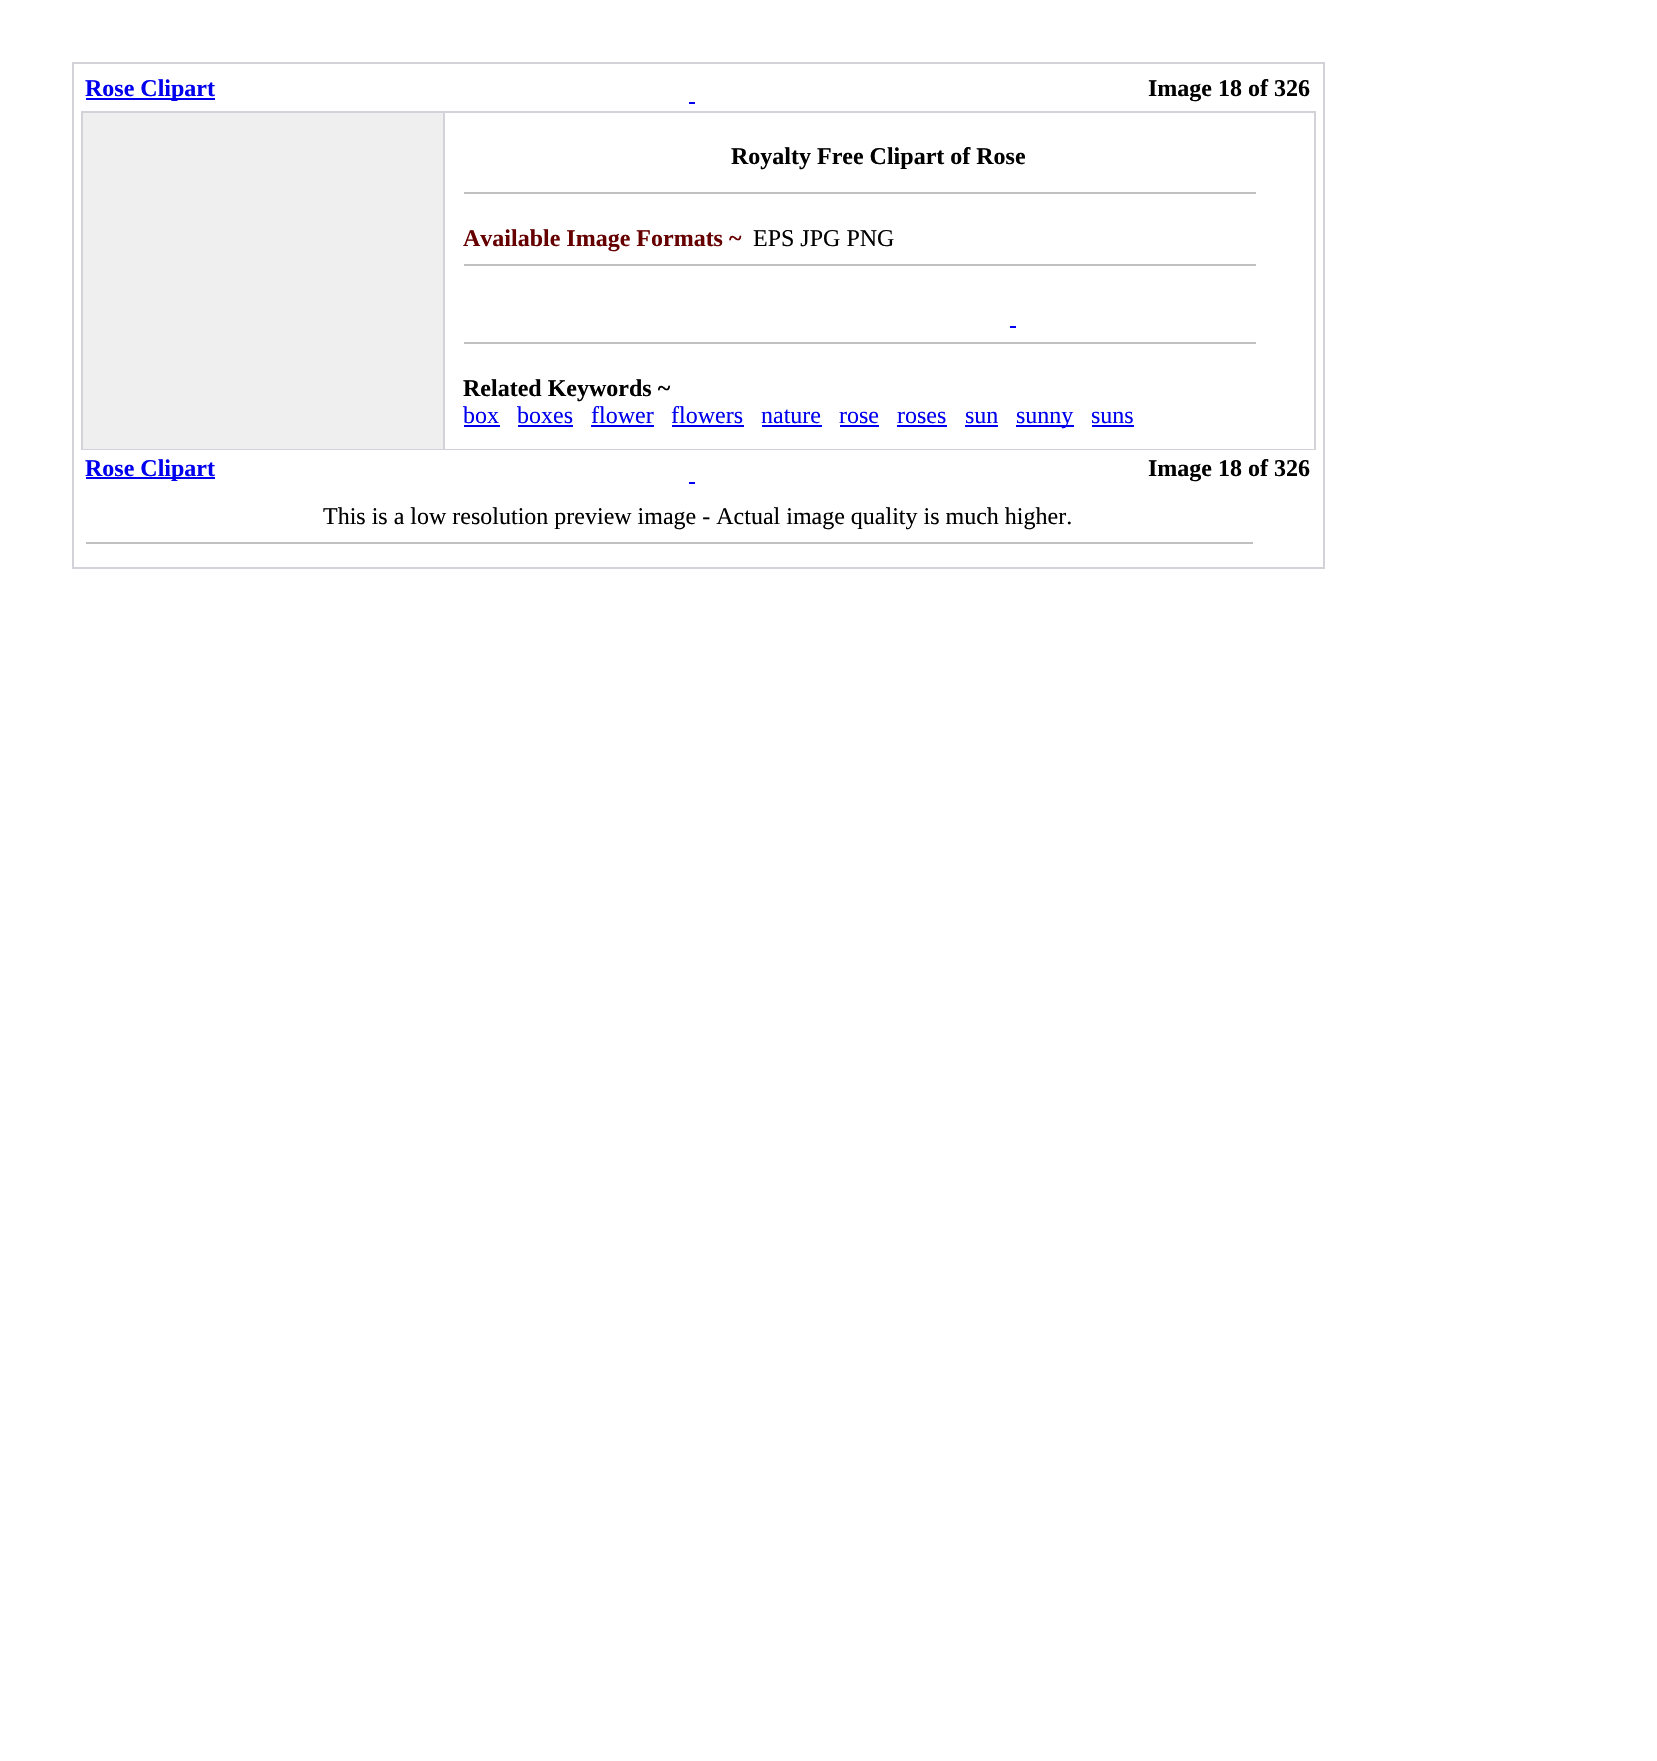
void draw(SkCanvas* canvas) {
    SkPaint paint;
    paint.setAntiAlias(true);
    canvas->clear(0xFFFFFFFF);
    paint.setColor(0xFFD2D2D8);
    canvas->drawRect(SkRect::MakeXYWH(72, 62, 1253, 2), paint);
    canvas->drawRect(SkRect::MakeXYWH(1323, 62, 2, 507), paint);
    canvas->drawRect(SkRect::MakeXYWH(72, 567, 1253, 2), paint);
    canvas->drawRect(SkRect::MakeXYWH(72, 62, 2, 507), paint);
    paint.setColor(0xFF0000EE);
    canvas->drawRect(SkRect::MakeXYWH(86, 98, 129, 2), paint);
    SkFont font1(fontMgr->matchFamilyStyle("Liberation Serif", SkFontStyle::Bold()), 24);
    font1.setSubpixel(true);
    canvas->drawString("Rose Clipart", 85, 96, font1, paint);
    paint.setColor(0xFF000000);
    canvas->drawString("Image 18 of 326", 1148, 96, font1, paint);
    paint.setColor(0xFF0000EE);
    canvas->drawRect(SkRect::MakeXYWH(689, 102, 6, 2), paint);
    paint.setColor(0xFFD2D2D8);
    canvas->drawRect(SkRect::MakeXYWH(81, 111, 1235, 2), paint);
    canvas->drawRect(SkRect::MakeXYWH(1314, 111, 2, 339), paint);
    canvas->drawRect(SkRect::MakeXYWH(81, 449, 1235, 1), paint);
    canvas->drawRect(SkRect::MakeXYWH(81, 111, 2, 339), paint);
    paint.setColor(0xFFEFEFEF);
    canvas->drawRect(SkRect::MakeXYWH(83, 113, 360, 336), paint);
    paint.setColor(0xFFD2D2D8);
    canvas->drawRect(SkRect::MakeXYWH(443, 111, 2, 339), paint);
    paint.setColor(0xFF000000);
    canvas->drawString("Royalty Free Clipart of Rose", 731, 164, font1, paint);
    paint.setColor(0xFFC0C0C0);
    canvas->drawRect(SkRect::MakeXYWH(464, 192, 792, 2), paint);
    paint.setColor(0xFF660000);
    canvas->drawString("Available Image Formats ~", 463, 246, font1, paint);
    SkFont font2(fontMgr->matchFamilyStyle("Liberation Serif", SkFontStyle::Normal()), 24);
    font2.setSubpixel(true);
    paint.setColor(0xFF000000);
    canvas->drawString("EPS JPG PNG", 753, 246, font2, paint);
    paint.setColor(0xFFC0C0C0);
    canvas->drawRect(SkRect::MakeXYWH(464, 264, 792, 2), paint);
    paint.setColor(0xFF0000EE);
    canvas->drawRect(SkRect::MakeXYWH(1010, 326, 6, 2), paint);
    paint.setColor(0xFFC0C0C0);
    canvas->drawRect(SkRect::MakeXYWH(464, 342, 792, 2), paint);
    paint.setColor(0xFF000000);
    canvas->drawString("Related Keywords ~", 463, 396, font1, paint);
    paint.setColor(0xFF0000EE);
    canvas->drawString("box", 463, 423, font2, paint);
    canvas->drawRect(SkRect::MakeXYWH(464, 425, 36, 2), paint);
    canvas->drawString("boxes", 517, 423, font2, paint);
    canvas->drawRect(SkRect::MakeXYWH(518, 425, 55, 2), paint);
    canvas->drawString("flower", 591, 423, font2, paint);
    canvas->drawRect(SkRect::MakeXYWH(591, 425, 63, 2), paint);
    canvas->drawString("flowers", 671, 423, font2, paint);
    canvas->drawRect(SkRect::MakeXYWH(672, 425, 72, 2), paint);
    canvas->drawString("nature", 761, 423, font2, paint);
    canvas->drawRect(SkRect::MakeXYWH(762, 425, 60, 2), paint);
    canvas->drawString("rose", 839, 423, font2, paint);
    canvas->drawRect(SkRect::MakeXYWH(840, 425, 39, 2), paint);
    canvas->drawString("roses", 897, 423, font2, paint);
    canvas->drawRect(SkRect::MakeXYWH(897, 425, 50, 2), paint);
    canvas->drawString("sun", 965, 423, font2, paint);
    canvas->drawRect(SkRect::MakeXYWH(965, 425, 33, 2), paint);
    canvas->drawRect(SkRect::MakeXYWH(1016, 425, 58, 2), paint);
    canvas->drawString("sunny", 1016, 423, font2, paint);
    canvas->drawString("suns", 1091, 423, font2, paint);
    canvas->drawRect(SkRect::MakeXYWH(1092, 425, 42, 2), paint);
    canvas->drawRect(SkRect::MakeXYWH(86, 477, 129, 2), paint);
    canvas->drawString("Rose Clipart", 85, 476, font1, paint);
    paint.setColor(0xFF000000);
    canvas->drawString("Image 18 of 326", 1148, 476, font1, paint);
    paint.setColor(0xFF0000EE);
    canvas->drawRect(SkRect::MakeXYWH(689, 482, 6, 2), paint);
    paint.setColor(0xFF000000);
    canvas->drawString("This is a low resolution preview image - Actual image quality is much higher.", 323, 524, font2, paint);
    paint.setColor(0xFFC0C0C0);
    canvas->drawRect(SkRect::MakeXYWH(86, 542, 1167, 2), paint);
}
